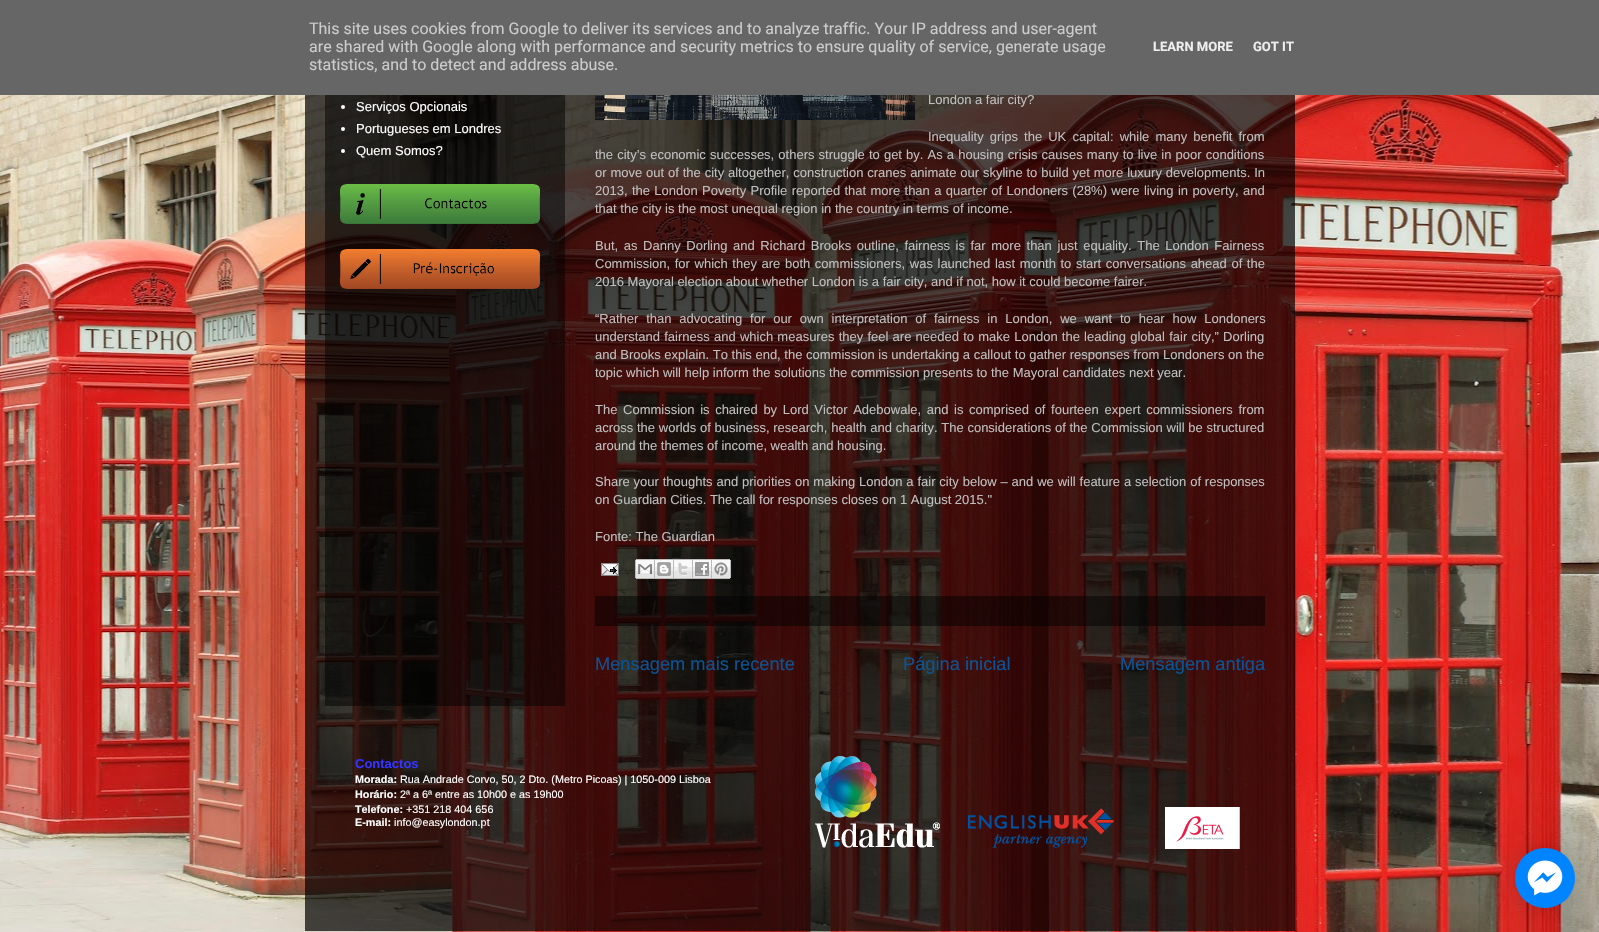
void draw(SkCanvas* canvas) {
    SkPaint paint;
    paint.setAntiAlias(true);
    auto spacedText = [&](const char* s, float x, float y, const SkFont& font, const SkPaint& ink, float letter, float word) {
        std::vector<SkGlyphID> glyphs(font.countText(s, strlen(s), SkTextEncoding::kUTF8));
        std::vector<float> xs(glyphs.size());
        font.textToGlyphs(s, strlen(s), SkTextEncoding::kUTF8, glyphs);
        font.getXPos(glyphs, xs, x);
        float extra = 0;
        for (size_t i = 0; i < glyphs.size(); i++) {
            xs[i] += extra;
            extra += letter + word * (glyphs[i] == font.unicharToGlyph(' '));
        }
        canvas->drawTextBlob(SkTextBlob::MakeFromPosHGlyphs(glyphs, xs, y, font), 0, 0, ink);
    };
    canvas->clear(0xFFFFFFFF);
    canvas->drawImageRect(SkImages::DeferredFromEncodedData(SkData::MakeFromFileName("img1.png")), SkRect::MakeXYWH(0, 95, 1599, 837), SkSamplingOptions());
    paint.setColor(0xB3000000);
    canvas->drawRect(SkRect::MakeXYWH(305, 95, 990, 836), paint);
    SkFont font1(fontMgr->matchFamilyStyle("Liberation Sans", SkFontStyle::Normal()), 13);
    font1.setSubpixel(true);
    paint.setColor(0xFFBFBFBF);
    canvas->drawString("London a fair city?", 928, 104, font1, paint);
    paint.setColor(0xFF666666);
    canvas->drawRect(SkRect::MakeXYWH(0, 0, 1599, 95), paint);
    SkFont font2(fontMgr->matchFamilyStyle("Roboto", SkFontStyle::Normal()), 16);
    font2.setSubpixel(true);
    paint.setColor(0xFFCCCCCC);
    canvas->drawString("This site uses cookies from Google to deliver its services and to analyze traffic. Your IP address and user-agent", 309, 34, font2, paint);
    canvas->drawString("are shared with Google along with performance and security metrics to ensure quality of service, generate usage", 309, 52, font2, paint);
    canvas->drawString("statistics, and to detect and address abuse.", 309, 70, font2, paint);
    SkFont font3(fontMgr->matchFamilyStyle("Roboto", SkFontStyle::Bold()), 13);
    font3.setSubpixel(true);
    paint.setColor(0xFFEEEEEE);
    canvas->drawString("LEARN MORE", 1153, 51, font3, paint);
    canvas->drawString("GOT IT", 1253, 51, font3, paint);
    paint.setColor(0x80000000);
    canvas->drawRect(SkRect::MakeXYWH(325, 95, 240, 611), paint);
    paint.setColor(0xFFFFFFFF);
    canvas->drawCircle(343, 107, 2, paint);
    canvas->drawString("Serviços Opcionais", 356, 111, font1, paint);
    canvas->drawCircle(343, 129, 2, paint);
    canvas->drawString("Portugueses em Londres", 356, 133, font1, paint);
    canvas->drawCircle(343, 151, 2, paint);
    canvas->drawString("Quem Somos?", 356, 155, font1, paint);
    canvas->drawImageRect(SkImages::DeferredFromEncodedData(SkData::MakeFromFileName("img2.png")), SkRect::MakeXYWH(340, 184, 200, 40), SkSamplingOptions());
    canvas->drawImageRect(SkImages::DeferredFromEncodedData(SkData::MakeFromFileName("img3.png")), SkRect::MakeXYWH(340, 249, 200, 40), SkSamplingOptions());
    canvas->drawImageRect(SkImages::DeferredFromEncodedData(SkData::MakeFromFileName("img4.png")), SkRect::MakeXYWH(595, 95, 320, 25), SkSamplingOptions());
    paint.setColor(0xFFBFBFBF);
    spacedText("Inequality grips the UK capital: while many benefit from", 928, 141, font1, paint, 0, 2.5f);
    spacedText("the city’s economic successes, others struggle to get by. As a housing crisis causes many to live in poor conditions", 595, 159, font1, paint, 0, 0.5f);
    spacedText("or move out of the city altogether, construction cranes animate our skyline to build yet more luxury developments. In", 595, 177, font1, paint, 0, 0.25f);
    spacedText("2013, the London Poverty Profile reported that more than a quarter of Londoners (28%) were living in poverty, and", 595, 195, font1, paint, 0, 0.75f);
    canvas->drawString("that the city is the most unequal region in the country in terms of income.", 595, 213, font1, paint);
    spacedText("But, as Danny Dorling and Richard Brooks outline, fairness is far more than just equality. The London Fairness", 595, 250, font1, paint, 0, 2);
    spacedText("Commission, for which they are both commissioners, was launched last month to start conversations ahead of the", 595, 268, font1, paint, 0, 1);
    canvas->drawString("2016 Mayoral election about whether London is a fair city, and if not, how it could become fairer.", 595, 286, font1, paint);
    spacedText("“Rather than advocating for our own interpretation of fairness in London, we want to hear how Londoners", 595, 323, font1, paint, 0, 4.25f);
    spacedText("understand fairness and which measures they feel are needed to make London the leading global fair city,” Dorling", 595, 341, font1, paint, 0, 0.6f);
    canvas->drawString("and Brooks explain. To this end, the commission is undertaking a callout to gather responses from Londoners on the", 595, 359, font1, paint);
    canvas->drawString("topic which will help inform the solutions the commission presents to the Mayoral candidates next year.", 595, 377, font1, paint);
    spacedText("The Commission is chaired by Lord Victor Adebowale, and is comprised of fourteen expert commissioners from", 595, 414, font1, paint, 0, 2);
    spacedText("across the worlds of business, research, health and charity. The considerations of the Commission will be structured", 595, 432, font1, paint, 0, 0.1f);
    canvas->drawString("around the themes of income, wealth and housing.", 595, 450, font1, paint);
    spacedText("Share your thoughts and priorities on making London a fair city below – and we will feature a selection of responses", 595, 486, font1, paint, 0, 0.25f);
    canvas->drawString("on Guardian Cities. The call for responses closes on 1 August 2015.\"", 595, 504, font1, paint);
    canvas->drawString("Fonte: The Guardian", 595, 541, font1, paint);
    canvas->drawImageRect(SkImages::DeferredFromEncodedData(SkData::MakeFromFileName("img5.png")), SkRect::MakeXYWH(601, 563, 18, 13), SkSamplingOptions());
    canvas->drawImageRect(SkImages::DeferredFromEncodedData(SkData::MakeFromFileName("img6.png")), SkRect::MakeXYWH(635, 559, 20, 20), SkSamplingOptions());
    canvas->drawImageRect(SkImages::DeferredFromEncodedData(SkData::MakeFromFileName("img7.png")), SkRect::MakeXYWH(655, 559, 19, 20), SkSamplingOptions());
    canvas->drawImageRect(SkImages::DeferredFromEncodedData(SkData::MakeFromFileName("img8.png")), SkRect::MakeXYWH(674, 559, 19, 20), SkSamplingOptions());
    canvas->drawImageRect(SkImages::DeferredFromEncodedData(SkData::MakeFromFileName("img9.png")), SkRect::MakeXYWH(693, 559, 19, 20), SkSamplingOptions());
    canvas->drawImageRect(SkImages::DeferredFromEncodedData(SkData::MakeFromFileName("img10.png")), SkRect::MakeXYWH(712, 559, 19, 20), SkSamplingOptions());
    paint.setColor(0x80000000);
    canvas->drawRect(SkRect::MakeXYWH(595, 596, 670, 30), paint);
    SkFont font4(fontMgr->matchFamilyStyle("Liberation Sans", SkFontStyle::Normal()), 18.25f);
    font4.setSubpixel(true);
    paint.setColor(0xFF0B5394);
    canvas->drawString("Mensagem mais recente", 595, 670, font4, paint);
    canvas->drawString("Página inicial", 903, 670, font4, paint);
    canvas->drawString("Mensagem antiga", 1120, 670, font4, paint);
    SkFont font5(fontMgr->matchFamilyStyle("Liberation Sans", SkFontStyle::Bold()), 13);
    font5.setSubpixel(true);
    paint.setColor(0xFF3333FF);
    canvas->drawString("Contactos", 355, 768, font5, paint);
    SkFont font6(fontMgr->matchFamilyStyle("Liberation Sans", SkFontStyle::Bold()), 10.8f);
    font6.setSubpixel(true);
    paint.setColor(0xFFFFFFFF);
    canvas->drawString("Morada:", 355, 783, font6, paint);
    SkFont font7(fontMgr->matchFamilyStyle("Liberation Sans", SkFontStyle::Normal()), 10.8f);
    font7.setSubpixel(true);
    canvas->drawString("Rua Andrade Corvo, 50, 2 Dto. (Metro Picoas) | 1050-009 Lisboa", 400, 783, font7, paint);
    canvas->drawString("Horário:", 355, 798, font6, paint);
    canvas->drawString("2ª a 6ª entre as 10h00 e as 19h00", 400, 798, font7, paint);
    canvas->drawString("Telefone:", 355, 813, font6, paint);
    canvas->drawString("+351 218 404 656", 406, 813, font7, paint);
    canvas->drawString("E-mail:", 355, 826, font6, paint);
    canvas->drawString("info@easylondon.pt", 394, 826, font7, paint);
    canvas->drawImageRect(SkImages::DeferredFromEncodedData(SkData::MakeFromFileName("img11.png")), SkRect::MakeXYWH(815, 756, 425, 93), SkSamplingOptions());
    paint.setColor(0x29000000);
    paint.setMaskFilter(SkMaskFilter::MakeBlur(kNormal_SkBlurStyle, 16));
    canvas->drawRoundRect(SkRect::MakeXYWH(1515, 850, 60, 60), 30, 30, paint);
    paint.setMaskFilter(nullptr);
    paint.setColor(0x0F000000);
    paint.setMaskFilter(SkMaskFilter::MakeBlur(kNormal_SkBlurStyle, 3));
    canvas->drawRoundRect(SkRect::MakeXYWH(1515, 849, 60, 60), 30, 30, paint);
    paint.setMaskFilter(nullptr);
    paint.setColor(0xFF0084FF);
    canvas->drawCircle(1545, 878, 30, paint);
    canvas->drawImageRect(SkImages::DeferredFromEncodedData(SkData::MakeFromFileName("img12.png")), SkRect::MakeXYWH(1521, 854, 48, 48), SkSamplingOptions());
}
